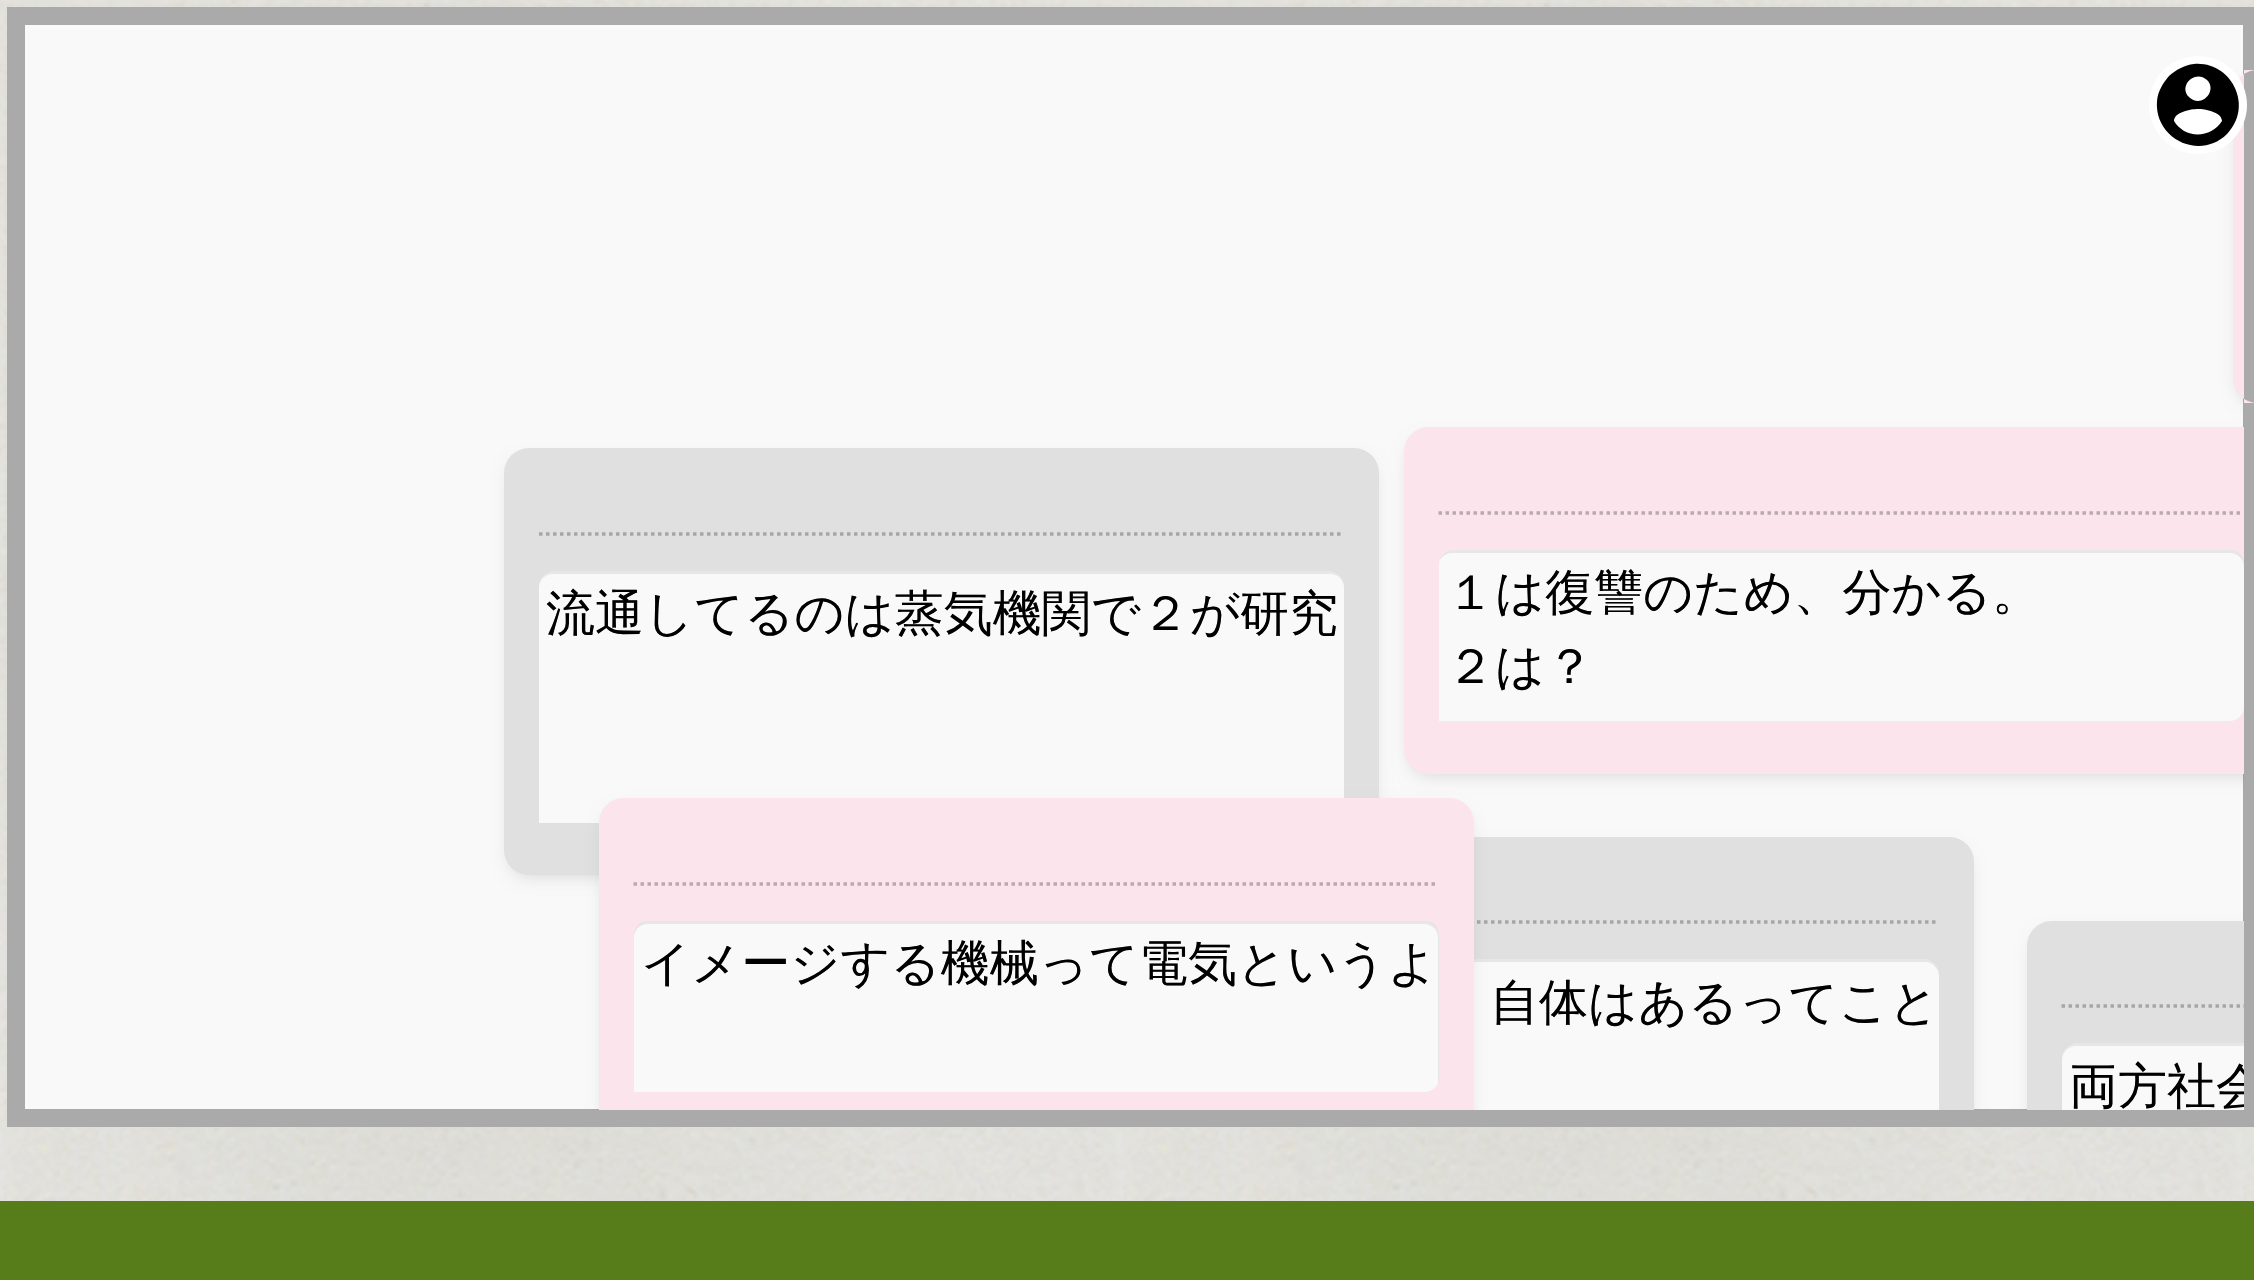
void draw(SkCanvas* canvas) {
    SkPaint paint;
    paint.setAntiAlias(true);
    canvas->clear(0xFFFFFFFF);
    canvas->drawImageRect(SkImages::DeferredFromEncodedData(SkData::MakeFromFileName("img1.png")), SkRect::MakeXYWH(0, 0, 2254, 1201), SkSamplingOptions());
    paint.setColor(0xFFF9F9F9);
    canvas->drawRect(SkRect::MakeXYWH(16, 16, 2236, 1102), paint);
    paint.setStyle(SkPaint::kStroke_Style);
    paint.setStrokeWidth(18);
    paint.setColor(0xFFAAAAAA);
    canvas->drawRect(SkRect::MakeXYWH(16, 16, 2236, 1102), paint);
    paint.setStyle(SkPaint::kFill_Style);
    paint.setColor(0xFF577C1A);
    canvas->drawRect(SkRect::MakeXYWH(0, 1201, 2254, 79), paint);
    canvas->save();
    canvas->clipRect(SkRect::MakeXYWH(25, 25, 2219, 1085));
    paint.setColor(0x26000000);
    paint.setMaskFilter(SkMaskFilter::MakeBlur(kNormal_SkBlurStyle, 9));
    canvas->drawRoundRect(SkRect::MakeXYWH(1106, 851, 861, 413), 18, 18, paint);
    paint.setMaskFilter(nullptr);
    canvas->restore();
    paint.setColor(0xFFE0E0E0);
    canvas->drawPath(SkPathBuilder().moveTo(1124, 837).lineTo(1949, 837).cubicTo(1963, 837, 1974, 848, 1974, 862).lineTo(1974, 1110).lineTo(1099, 1110).lineTo(1099, 862).cubicTo(1099, 848, 1110, 837, 1124, 837).close().detach(), paint);
    paint.setColor(0x26000000);
    paint.setMaskFilter(SkMaskFilter::MakeBlur(kNormal_SkBlurStyle, 9));
    canvas->drawRoundRect(SkRect::MakeXYWH(511, 462, 861, 413), 18, 18, paint);
    paint.setMaskFilter(nullptr);
    paint.setColor(0xFFE0E0E0);
    canvas->drawRoundRect(SkRect::MakeXYWH(504, 448, 875, 427), 25, 25, paint);
    paint.setColor(0xFFF9F9F9);
    canvas->drawPath(SkPathBuilder().moveTo(553, 571).lineTo(1330, 571).cubicTo(1337.5f, 571, 1344, 577.5f, 1344, 585).lineTo(1344, 809).cubicTo(1344, 816.5f, 1337.5f, 823, 1330, 823).lineTo(539, 823).lineTo(539, 585).cubicTo(539, 577.5f, 545.5f, 571, 553, 571).close().detach(), paint);
    paint.setStyle(SkPaint::kStroke_Style);
    paint.setStrokeWidth(3.5f);
    paint.setColor(0xFFA6A6A6);
    paint.setPathEffect(SkDashPathEffect::Make({{3.5f, 3.5f}}, 0));
    canvas->drawPath(SkPathBuilder().moveTo(1134, 922).lineTo(1939, 922).detach(), paint);
    paint.setPathEffect(nullptr);
    paint.setStyle(SkPaint::kFill_Style);
    paint.setColor(0xFFF9F9F9);
    canvas->drawPath(SkPathBuilder().moveTo(1148, 959).lineTo(1925, 959).cubicTo(1932.5f, 959, 1939, 965.5f, 1939, 973).lineTo(1939, 1110).lineTo(1134, 1110).lineTo(1134, 973).cubicTo(1134, 965.5f, 1140.5f, 959, 1148, 959).close().detach(), paint);
    paint.setColor(0x12000000);
    canvas->drawPath(SkPathBuilder().moveTo(1148, 962).lineTo(1925, 962).cubicTo(1933, 962, 1939, 969, 1939, 976).lineTo(1939, 973).cubicTo(1939, 965, 1933, 959, 1925, 959).lineTo(1148, 959).cubicTo(1140, 959, 1134, 965, 1134, 973).lineTo(1134, 976).cubicTo(1134, 969, 1140, 962, 1148, 962).close().detach(), paint);
    canvas->save();
    canvas->clipRect(SkRect::MakeXYWH(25, 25, 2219, 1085));
    paint.setColor(0x26000000);
    paint.setMaskFilter(SkMaskFilter::MakeBlur(kNormal_SkBlurStyle, 9));
    canvas->drawRoundRect(SkRect::MakeXYWH(606, 812, 861, 333), 18, 18, paint);
    paint.setMaskFilter(nullptr);
    canvas->restore();
    paint.setColor(0xFFFCE4EC);
    canvas->drawPath(SkPathBuilder().moveTo(624, 798).lineTo(1449, 798).cubicTo(1463, 798, 1474, 809, 1474, 823).lineTo(1474, 1110).lineTo(599, 1110).lineTo(599, 823).cubicTo(599, 809, 610, 798, 624, 798).close().detach(), paint);
    canvas->save();
    canvas->clipRect(SkRect::MakeXYWH(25, 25, 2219, 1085));
    paint.setColor(0x26000000);
    paint.setMaskFilter(SkMaskFilter::MakeBlur(kNormal_SkBlurStyle, 9));
    canvas->drawRoundRect(SkRect::MakeXYWH(1411, 441, 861, 333), 18, 18, paint);
    paint.setMaskFilter(nullptr);
    canvas->restore();
    paint.setColor(0xFFFCE4EC);
    canvas->drawPath(SkPathBuilder().moveTo(1429, 427).lineTo(2244, 427).lineTo(2244, 774).lineTo(1429, 774).cubicTo(1415, 774, 1404, 763, 1404, 749).lineTo(1404, 452).cubicTo(1404, 438, 1415, 427, 1429, 427).close().detach(), paint);
    canvas->save();
    canvas->clipRect(SkRect::MakeXYWH(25, 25, 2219, 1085));
    paint.setColor(0x26000000);
    paint.setMaskFilter(SkMaskFilter::MakeBlur(kNormal_SkBlurStyle, 9));
    canvas->drawRoundRect(SkRect::MakeXYWH(2240, 84, 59, 319), 18, 18, paint);
    paint.setMaskFilter(nullptr);
    canvas->restore();
    paint.setColor(0xFFFCE4EC);
    canvas->drawPath(SkPathBuilder().moveTo(2258, 70).lineTo(2244, 70).lineTo(2244, 403).lineTo(2258, 403).cubicTo(2244, 403, 2233, 392, 2233, 378).lineTo(2233, 95).cubicTo(2233, 81, 2244, 70, 2258, 70).close().detach(), paint);
    paint.setColor(0xFFFFFFFF);
    canvas->drawCircle(2198, 105, 49, paint);
    paint.setColor(0xFF000000);
    canvas->drawPath(SkPathBuilder().moveTo(2184, 131).cubicTo(2197, 138, 2214, 134, 2222, 121).cubicTo(2222, 112, 2205, 109, 2198, 109).cubicTo(2191, 109, 2174, 112, 2174, 121).cubicTo(2176, 125, 2180, 128, 2184, 131).close().moveTo(2207, 80).cubicTo(2195, 69, 2178, 86, 2189, 97).cubicTo(2201, 109, 2218, 91, 2207, 80).close().moveTo(2169, 76).cubicTo(2176, 70, 2184, 65, 2194, 64).cubicTo(2232, 61, 2254, 107, 2227, 134).cubicTo(2200, 161, 2154, 139, 2157, 101).cubicTo(2158, 91, 2163, 83, 2169, 76).close().detach(), paint);
    paint.setStyle(SkPaint::kStroke_Style);
    paint.setColor(0xFFA6A6A6);
    paint.setPathEffect(SkDashPathEffect::Make({{3.5f, 3.5f}}, 0));
    canvas->drawPath(SkPathBuilder().moveTo(539, 534).lineTo(1344, 534).detach(), paint);
    paint.setPathEffect(nullptr);
    paint.setStyle(SkPaint::kFill_Style);
    paint.setColor(0x12000000);
    canvas->drawPath(SkPathBuilder().moveTo(553, 574).lineTo(1330, 574).cubicTo(1338, 574, 1344, 580, 1344, 588).lineTo(1344, 585).cubicTo(1344, 577, 1338, 571, 1330, 571).lineTo(553, 571).cubicTo(545, 571, 539, 577, 539, 585).lineTo(539, 588).cubicTo(539, 580, 545, 574, 553, 574).close().detach(), paint);
    SkFont font1(fontMgr->matchFamilyStyle("WenQuanYi Zen Hei", SkFontStyle(500, SkFontStyle::kNormal_Width, SkFontStyle::kUpright_Slant)), 49);
    font1.setSubpixel(true);
    paint.setColor(0xFF000000);
    canvas->drawString("流通してるのは蒸気機関で２が研究", 546, 630, font1, paint);
    paint.setStyle(SkPaint::kStroke_Style);
    paint.setColor(0xFFBAA9AF);
    paint.setPathEffect(SkDashPathEffect::Make({{3.5f, 3.5f}}, 0));
    canvas->drawPath(SkPathBuilder().moveTo(1438.5f, 513).lineTo(2243.5f, 513).detach(), paint);
    paint.setPathEffect(nullptr);
    paint.setStyle(SkPaint::kFill_Style);
    paint.setColor(0xFFF9F9F9);
    canvas->drawPath(SkPathBuilder().moveTo(1453, 550).lineTo(2230, 550).cubicTo(2237.5f, 550, 2244, 556.5f, 2244, 564).lineTo(2244, 707).cubicTo(2244, 714.5f, 2237.5f, 721, 2230, 721).lineTo(1439, 721).lineTo(1439, 564).cubicTo(1439, 556.5f, 1445.5f, 550, 1453, 550).close().detach(), paint);
    paint.setColor(0x12000000);
    canvas->drawPath(SkPathBuilder().moveTo(1452, 553).lineTo(2230, 553).cubicTo(2237, 553, 2244, 559, 2244, 567).lineTo(2244, 564).cubicTo(2244, 556, 2238, 550, 2230, 550).lineTo(1453, 550).cubicTo(1446, 550, 1441, 555, 1439, 561).cubicTo(1442, 556, 1447, 553, 1452, 553).close().detach(), paint);
    paint.setColor(0xFF000000);
    canvas->drawString("１は復讐のため、分かる。", 1446, 609, font1, paint);
    canvas->drawString("２は？", 1446, 683, font1, paint);
    paint.setStyle(SkPaint::kStroke_Style);
    paint.setColor(0xFFBAA9AF);
    paint.setPathEffect(SkDashPathEffect::Make({{3.5f, 3.5f}}, 0));
    canvas->drawPath(SkPathBuilder().moveTo(633.5f, 884).lineTo(1438.5f, 884).detach(), paint);
    paint.setPathEffect(nullptr);
    paint.setStyle(SkPaint::kFill_Style);
    paint.setColor(0xFFF9F9F9);
    canvas->drawPath(SkPathBuilder().moveTo(648, 921).lineTo(1425, 921).cubicTo(1432.5f, 921, 1439, 927.5f, 1439, 935).lineTo(1439, 1078).cubicTo(1439, 1085.5f, 1432.5f, 1092, 1425, 1092).lineTo(634, 1092).lineTo(634, 935).cubicTo(634, 927.5f, 640.5f, 921, 648, 921).close().detach(), paint);
    paint.setColor(0x12000000);
    canvas->drawPath(SkPathBuilder().moveTo(648, 924).lineTo(1424, 924).cubicTo(1432, 924, 1438, 930, 1438, 938).lineTo(1438, 1083).cubicTo(1439, 1082, 1439, 1080, 1439, 1078).lineTo(1439, 935).cubicTo(1439, 927, 1433, 921, 1425, 921).lineTo(648, 921).cubicTo(640, 921, 634, 927, 634, 935).lineTo(634, 938).cubicTo(634, 930, 640, 924, 648, 924).close().detach(), paint);
    paint.setColor(0xFF000000);
    canvas->drawString("イメージする機械って電気というよ", 641, 980, font1, paint);
    canvas->drawString("自体はあるってこと", 1490, 1019, font1, paint);
    canvas->save();
    canvas->clipRect(SkRect::MakeXYWH(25, 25, 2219, 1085));
    paint.setColor(0x26000000);
    paint.setMaskFilter(SkMaskFilter::MakeBlur(kNormal_SkBlurStyle, 9));
    canvas->drawRoundRect(SkRect::MakeXYWH(2034, 935, 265, 318), 18, 18, paint);
    paint.setMaskFilter(nullptr);
    canvas->restore();
    paint.setColor(0xFFE0E0E0);
    canvas->drawPath(SkPathBuilder().moveTo(2052, 921).lineTo(2244, 921).lineTo(2244, 1110).lineTo(2027, 1110).lineTo(2027, 946).cubicTo(2027, 932, 2038, 921, 2052, 921).close().detach(), paint);
    canvas->save();
    canvas->clipRect(SkRect::MakeXYWH(25, 25, 2219, 1085));
    paint.setStyle(SkPaint::kStroke_Style);
    paint.setColor(0xFFA6A6A6);
    paint.setPathEffect(SkDashPathEffect::Make({{3.5f, 3.5f}}, 0));
    canvas->drawPath(SkPathBuilder().moveTo(2061.5f, 1006).lineTo(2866.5f, 1006).detach(), paint);
    paint.setPathEffect(nullptr);
    canvas->restore();
    paint.setStyle(SkPaint::kFill_Style);
    paint.setColor(0xFFF9F9F9);
    canvas->drawPath(SkPathBuilder().moveTo(2076, 1043).lineTo(2244, 1043).lineTo(2244, 1110).lineTo(2062, 1110).lineTo(2062, 1057).cubicTo(2062, 1049.5f, 2068.5f, 1043, 2076, 1043).close().detach(), paint);
    canvas->save();
    canvas->clipRect(SkRect::MakeXYWH(25, 25, 2219, 1085));
    paint.setColor(0x12000000);
    canvas->drawPath(SkPathBuilder().moveTo(2076, 1046).lineTo(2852, 1046).cubicTo(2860, 1046, 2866, 1053, 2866, 1060).lineTo(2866, 1193).cubicTo(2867, 1191, 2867, 1189, 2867, 1187).lineTo(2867, 1057).cubicTo(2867, 1049, 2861, 1043, 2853, 1043).lineTo(2076, 1043).cubicTo(2068, 1043, 2062, 1049, 2062, 1057).lineTo(2062, 1060).cubicTo(2062, 1053, 2068, 1046, 2076, 1046).close().detach(), paint);
    paint.setColor(0xFF000000);
    canvas->drawString("両方社会", 2069, 1103, font1, paint);
    canvas->restore();
}
